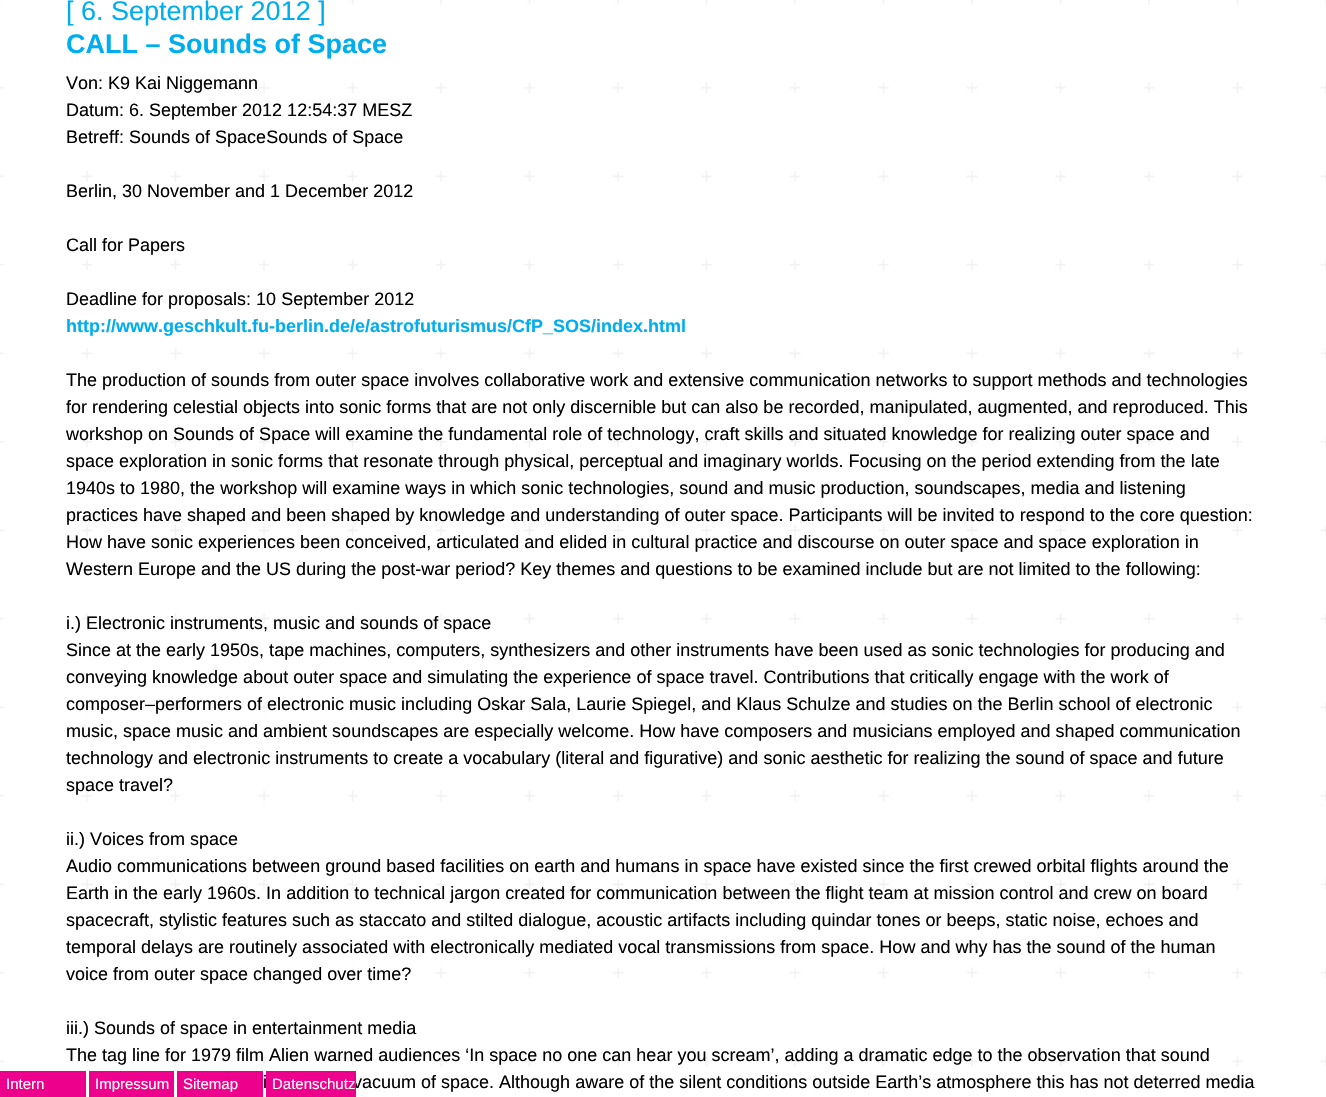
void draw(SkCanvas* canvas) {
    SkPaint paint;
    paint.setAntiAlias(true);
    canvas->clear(0xFFFFFFFF);
    canvas->drawImageRect(SkImages::DeferredFromEncodedData(SkData::MakeFromFileName("img1.png")), SkRect::MakeXYWH(0, 0, 1326, 1067), SkSamplingOptions());
    SkFont font1(fontMgr->matchFamilyStyle("Liberation Sans", SkFontStyle::Normal()), 27);
    font1.setSubpixel(true);
    paint.setColor(0xFF00AEF0);
    canvas->drawString("[ 6. September 2012 ]", 66, 20, font1, paint);
    SkFont font2(fontMgr->matchFamilyStyle("Liberation Sans", SkFontStyle::Bold()), 27);
    font2.setSubpixel(true);
    canvas->drawString("CALL – Sounds of Space", 66, 53, font2, paint);
    SkFont font3(fontMgr->matchFamilyStyle("Liberation Sans", SkFontStyle::Normal()), 18);
    font3.setSubpixel(true);
    paint.setColor(0xFF010101);
    canvas->drawString("Von: K9 Kai Niggemann", 66, 89, font3, paint);
    canvas->drawString("Datum: 6. September 2012 12:54:37 MESZ", 66, 116, font3, paint);
    canvas->drawString("Betreff: Sounds of SpaceSounds of Space", 66, 143, font3, paint);
    canvas->drawString("Berlin, 30 November and 1 December 2012", 66, 197, font3, paint);
    canvas->drawString("Call for Papers", 66, 251, font3, paint);
    canvas->drawString("Deadline for proposals: 10 September 2012", 66, 305, font3, paint);
    SkFont font4(fontMgr->matchFamilyStyle("Liberation Sans", SkFontStyle::Bold()), 18);
    font4.setSubpixel(true);
    paint.setColor(0xFF00AEF0);
    canvas->drawString("http://www.geschkult.fu-berlin.de/e/astrofuturismus/CfP_SOS/index.html", 66, 332, font4, paint);
    paint.setColor(0xFF010101);
    canvas->drawString("The production of sounds from outer space involves collaborative work and extensive communication networks to support methods and technologies", 66, 386, font3, paint);
    canvas->drawString("for rendering celestial objects into sonic forms that are not only discernible but can also be recorded, manipulated, augmented, and reproduced. This", 66, 413, font3, paint);
    canvas->drawString("workshop on Sounds of Space will examine the fundamental role of technology, craft skills and situated knowledge for realizing outer space and", 66, 440, font3, paint);
    canvas->drawString("space exploration in sonic forms that resonate through physical, perceptual and imaginary worlds. Focusing on the period extending from the late", 66, 467, font3, paint);
    canvas->drawString("1940s to 1980, the workshop will examine ways in which sonic technologies, sound and music production, soundscapes, media and listening", 66, 494, font3, paint);
    canvas->drawString("practices have shaped and been shaped by knowledge and understanding of outer space. Participants will be invited to respond to the core question:", 66, 521, font3, paint);
    canvas->drawString("How have sonic experiences been conceived, articulated and elided in cultural practice and discourse on outer space and space exploration in", 66, 548, font3, paint);
    canvas->drawString("Western Europe and the US during the post-war period? Key themes and questions to be examined include but are not limited to the following:", 66, 575, font3, paint);
    canvas->drawString("i.) Electronic instruments, music and sounds of space", 66, 629, font3, paint);
    canvas->drawString("Since at the early 1950s, tape machines, computers, synthesizers and other instruments have been used as sonic technologies for producing and", 66, 656, font3, paint);
    canvas->drawString("conveying knowledge about outer space and simulating the experience of space travel. Contributions that critically engage with the work of", 66, 683, font3, paint);
    canvas->drawString("composer–performers of electronic music including Oskar Sala, Laurie Spiegel, and Klaus Schulze and studies on the Berlin school of electronic", 66, 710, font3, paint);
    canvas->drawString("music, space music and ambient soundscapes are especially welcome. How have composers and musicians employed and shaped communication", 66, 737, font3, paint);
    canvas->drawString("technology and electronic instruments to create a vocabulary (literal and figurative) and sonic aesthetic for realizing the sound of space and future", 66, 764, font3, paint);
    canvas->drawString("space travel?", 66, 791, font3, paint);
    canvas->drawString("ii.) Voices from space", 66, 845, font3, paint);
    canvas->drawString("Audio communications between ground based facilities on earth and humans in space have existed since the first crewed orbital flights around the", 66, 872, font3, paint);
    canvas->drawString("Earth in the early 1960s. In addition to technical jargon created for communication between the flight team at mission control and crew on board", 66, 899, font3, paint);
    canvas->drawString("spacecraft, stylistic features such as staccato and stilted dialogue, acoustic artifacts including quindar tones or beeps, static noise, echoes and", 66, 926, font3, paint);
    canvas->drawString("temporal delays are routinely associated with electronically mediated vocal transmissions from space. How and why has the sound of the human", 66, 953, font3, paint);
    canvas->drawString("voice from outer space changed over time?", 66, 980, font3, paint);
    canvas->drawString("iii.) Sounds of space in entertainment media", 66, 1034, font3, paint);
    canvas->drawString("The tag line for 1979 film Alien warned audiences ‘In space no one can hear you scream’, adding a dramatic edge to the observation that sound", 66, 1061, font3, paint);
    canvas->drawString("i", 263, 1088, font3, paint);
    canvas->drawString("vacuum of space. Although aware of the silent conditions outside Earth’s atmosphere this has not deterred media", 353, 1088, font3, paint);
    paint.setColor(0xFFED008C);
    canvas->drawRect(SkRect::MakeXYWH(0, 1071, 86, 26), paint);
    SkFont font5(fontMgr->matchFamilyStyle("Liberation Sans", SkFontStyle::Normal()), 15);
    font5.setSubpixel(true);
    paint.setColor(0xFFFFFFFF);
    canvas->drawString("Intern", 6, 1089, font5, paint);
    paint.setColor(0xFFED008C);
    canvas->drawRect(SkRect::MakeXYWH(89, 1071, 85, 26), paint);
    paint.setColor(0xFFFFFFFF);
    canvas->drawString("Impressum", 95, 1089, font5, paint);
    paint.setColor(0xFFED008C);
    canvas->drawRect(SkRect::MakeXYWH(177, 1071, 86, 26), paint);
    paint.setColor(0xFFFFFFFF);
    canvas->drawString("Sitemap", 183, 1089, font5, paint);
    paint.setColor(0xFFED008C);
    canvas->drawRect(SkRect::MakeXYWH(266, 1071, 90, 26), paint);
    paint.setColor(0xFFFFFFFF);
    canvas->drawString("Datenschutz", 272, 1089, font5, paint);
}
